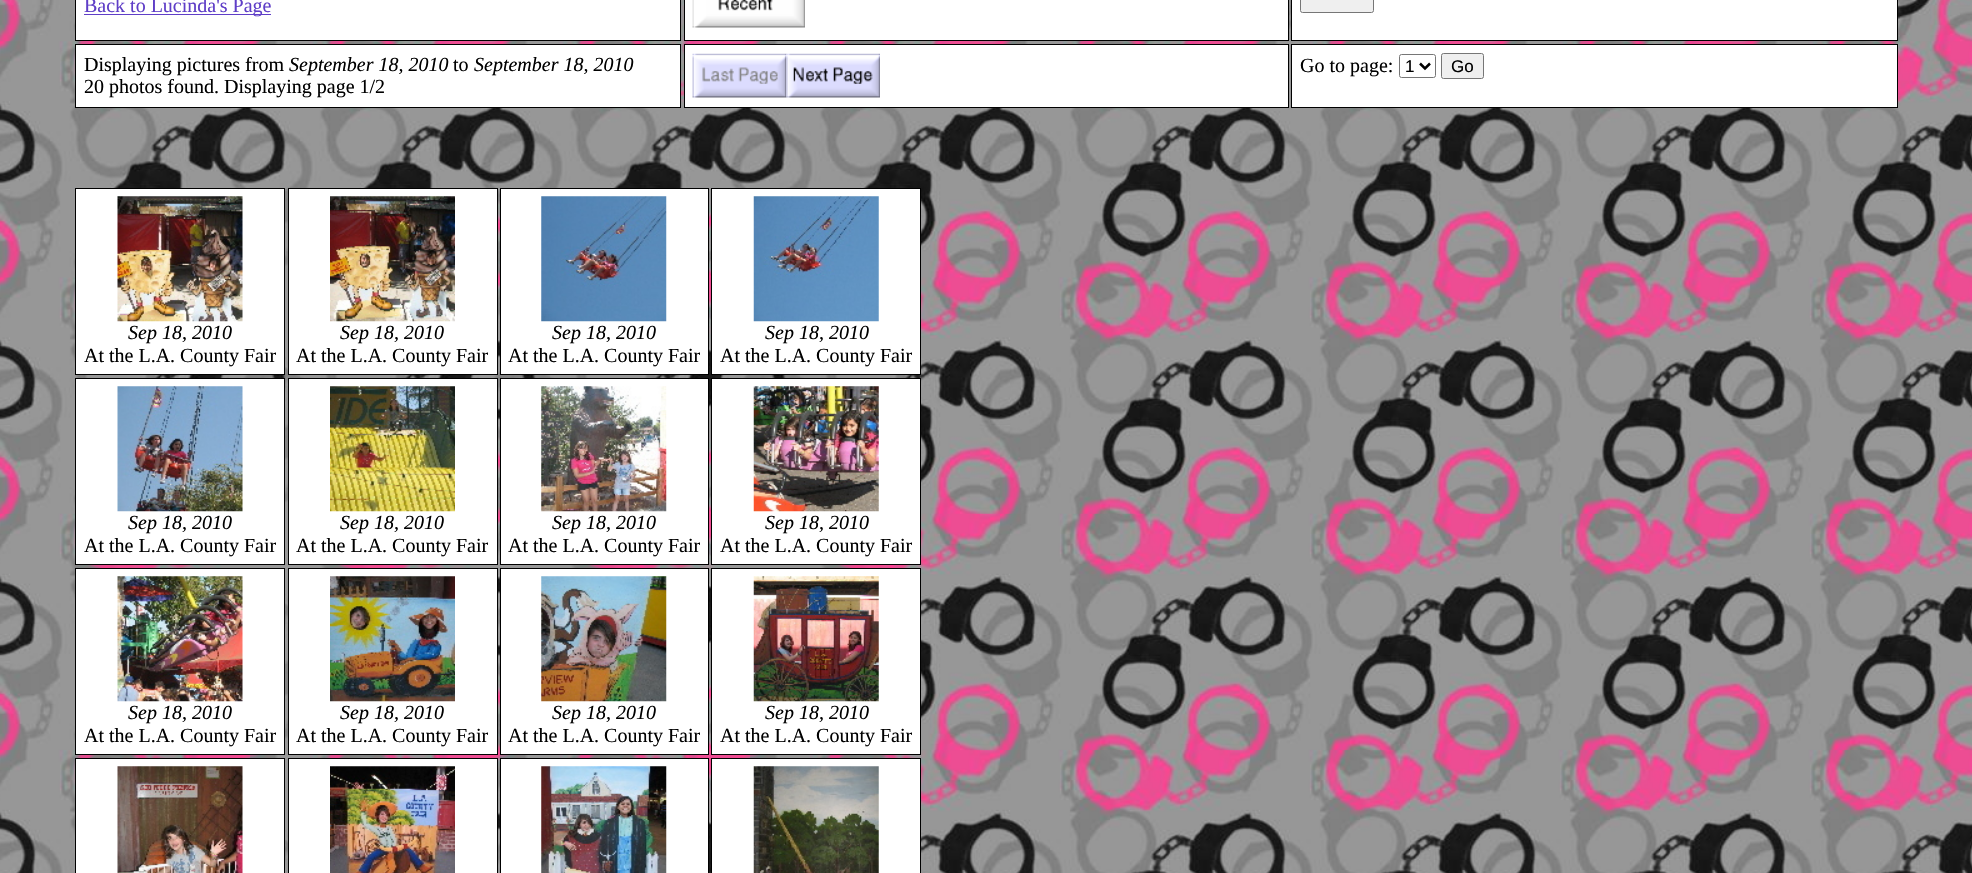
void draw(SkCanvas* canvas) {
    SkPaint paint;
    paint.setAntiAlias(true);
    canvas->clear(0xFFFFFFFF);
    canvas->drawImageRect(SkImages::DeferredFromEncodedData(SkData::MakeFromFileName("img1.png")), SkRect::MakeXYWH(0, 0, 1972, 873), SkSamplingOptions());
    paint.setColor(0xFFFFFFFF);
    canvas->drawRect(SkRect::MakeXYWH(75.5f, -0.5f, 605, 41), paint);
    paint.setStyle(SkPaint::kStroke_Style);
    paint.setStrokeWidth(1);
    paint.setColor(0xFF000000);
    canvas->drawRect(SkRect::MakeXYWH(75.5f, -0.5f, 605, 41), paint);
    paint.setStyle(SkPaint::kFill_Style);
    paint.setColor(0xFF5F3EC7);
    canvas->drawRect(SkRect::MakeXYWH(84, 14, 187, 1), paint);
    SkFont font1(fontMgr->matchFamilyStyle("Liberation Serif", SkFontStyle::Normal()), 20);
    font1.setSubpixel(true);
    canvas->drawString("Back to Lucinda's Page", 84, 12, font1, paint);
    paint.setColor(0xFFFFFFFF);
    canvas->drawRect(SkRect::MakeXYWH(684.5f, -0.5f, 604, 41), paint);
    paint.setStyle(SkPaint::kStroke_Style);
    paint.setColor(0xFF000000);
    canvas->drawRect(SkRect::MakeXYWH(684.5f, -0.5f, 604, 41), paint);
    canvas->drawImageRect(SkImages::DeferredFromEncodedData(SkData::MakeFromFileName("img2.png")), SkRect::MakeXYWH(692, 0, 113, 28), SkSamplingOptions());
    paint.setStyle(SkPaint::kFill_Style);
    paint.setColor(0xFFFFFFFF);
    canvas->drawRect(SkRect::MakeXYWH(1291.5f, -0.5f, 606, 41), paint);
    paint.setStyle(SkPaint::kStroke_Style);
    paint.setColor(0xFF000000);
    canvas->drawRect(SkRect::MakeXYWH(1291.5f, -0.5f, 606, 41), paint);
    paint.setStyle(SkPaint::kFill_Style);
    paint.setColor(0xFFEFEFEF);
    canvas->drawRoundRect(SkRect::MakeXYWH(1300.5f, -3.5f, 73, 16), 2, 2, paint);
    paint.setStyle(SkPaint::kStroke_Style);
    paint.setColor(0xFF767676);
    canvas->drawRoundRect(SkRect::MakeXYWH(1300.5f, -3.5f, 73, 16), 2, 2, paint);
    paint.setStyle(SkPaint::kFill_Style);
    paint.setColor(0xFFFFFFFF);
    canvas->drawRect(SkRect::MakeXYWH(75.5f, 44.5f, 605, 63), paint);
    paint.setStyle(SkPaint::kStroke_Style);
    paint.setColor(0xFF000000);
    canvas->drawRect(SkRect::MakeXYWH(75.5f, 44.5f, 605, 63), paint);
    paint.setStyle(SkPaint::kFill_Style);
    canvas->drawString("Displaying pictures from", 84, 71, font1, paint);
    SkFont font2(fontMgr->matchFamilyStyle("Liberation Serif", SkFontStyle::Italic()), 20);
    font2.setSubpixel(true);
    canvas->drawString("September 18, 2010", 289, 71, font2, paint);
    canvas->drawString("to", 453, 71, font1, paint);
    canvas->drawString("September 18, 2010", 474, 71, font2, paint);
    canvas->drawString("20 photos found. Displaying page 1/2", 84, 93, font1, paint);
    paint.setColor(0xFFFFFFFF);
    canvas->drawRect(SkRect::MakeXYWH(684.5f, 44.5f, 604, 63), paint);
    paint.setStyle(SkPaint::kStroke_Style);
    paint.setColor(0xFF000000);
    canvas->drawRect(SkRect::MakeXYWH(684.5f, 44.5f, 604, 63), paint);
    canvas->drawImageRect(SkImages::DeferredFromEncodedData(SkData::MakeFromFileName("img3.png")), SkRect::MakeXYWH(692, 53, 95, 45), SkSamplingOptions());
    canvas->drawImageRect(SkImages::DeferredFromEncodedData(SkData::MakeFromFileName("img4.png")), SkRect::MakeXYWH(786, 53, 94, 45), SkSamplingOptions());
    paint.setStyle(SkPaint::kFill_Style);
    paint.setColor(0xFFFFFFFF);
    canvas->drawRect(SkRect::MakeXYWH(1291.5f, 44.5f, 606, 63), paint);
    paint.setStyle(SkPaint::kStroke_Style);
    paint.setColor(0xFF000000);
    canvas->drawRect(SkRect::MakeXYWH(1291.5f, 44.5f, 606, 63), paint);
    paint.setStyle(SkPaint::kFill_Style);
    canvas->drawString("Go to page:", 1300, 72, font1, paint);
    paint.setStyle(SkPaint::kStroke_Style);
    paint.setColor(0xFF767676);
    canvas->drawRoundRect(SkRect::MakeXYWH(1399.5f, 54.5f, 36, 23), 2, 2, paint);
    paint.setStrokeWidth(2.5f);
    paint.setColor(0xFF000000);
    canvas->drawPath(SkPathBuilder().moveTo(1420, 63.5f).lineTo(1425, 68.5f).lineTo(1430, 63.5f).detach(), paint);
    SkFont font3(fontMgr->matchFamilyStyle("Liberation Sans", SkFontStyle::Normal()), 17);
    font3.setSubpixel(true);
    paint.setStyle(SkPaint::kFill_Style);
    canvas->drawString("1", 1405, 72, font3, paint);
    paint.setColor(0xFFEFEFEF);
    canvas->drawRoundRect(SkRect::MakeXYWH(1441.5f, 53.5f, 42, 25), 2, 2, paint);
    paint.setStyle(SkPaint::kStroke_Style);
    paint.setStrokeWidth(1);
    paint.setColor(0xFF767676);
    canvas->drawRoundRect(SkRect::MakeXYWH(1441.5f, 53.5f, 42, 25), 2, 2, paint);
    paint.setStyle(SkPaint::kFill_Style);
    paint.setColor(0xFF000000);
    canvas->drawString("Go", 1451, 72, font3, paint);
    paint.setColor(0xFFFFFFFF);
    canvas->drawRect(SkRect::MakeXYWH(75.5f, 188.5f, 209, 186), paint);
    paint.setStyle(SkPaint::kStroke_Style);
    paint.setColor(0xFF000000);
    canvas->drawRect(SkRect::MakeXYWH(75.5f, 188.5f, 209, 186), paint);
    canvas->drawImageRect(SkImages::DeferredFromEncodedData(SkData::MakeFromFileName("img5.png")), SkRect::MakeXYWH(117, 196, 126, 126), SkSamplingOptions());
    paint.setStyle(SkPaint::kFill_Style);
    canvas->drawString("Sep 18, 2010", 128, 339, font2, paint);
    canvas->drawString("At the L.A. County Fair", 84, 362, font1, paint);
    paint.setColor(0xFFFFFFFF);
    canvas->drawRect(SkRect::MakeXYWH(288.5f, 188.5f, 209, 186), paint);
    paint.setStyle(SkPaint::kStroke_Style);
    paint.setColor(0xFF000000);
    canvas->drawRect(SkRect::MakeXYWH(288.5f, 188.5f, 209, 186), paint);
    canvas->drawImageRect(SkImages::DeferredFromEncodedData(SkData::MakeFromFileName("img6.png")), SkRect::MakeXYWH(330, 196, 125, 126), SkSamplingOptions());
    paint.setStyle(SkPaint::kFill_Style);
    canvas->drawString("Sep 18, 2010", 340, 339, font2, paint);
    canvas->drawString("At the L.A. County Fair", 296, 362, font1, paint);
    paint.setColor(0xFFFFFFFF);
    canvas->drawRect(SkRect::MakeXYWH(500.5f, 188.5f, 208, 186), paint);
    paint.setStyle(SkPaint::kStroke_Style);
    paint.setColor(0xFF000000);
    canvas->drawRect(SkRect::MakeXYWH(500.5f, 188.5f, 208, 186), paint);
    canvas->drawImageRect(SkImages::DeferredFromEncodedData(SkData::MakeFromFileName("img7.png")), SkRect::MakeXYWH(541, 196, 126, 126), SkSamplingOptions());
    paint.setStyle(SkPaint::kFill_Style);
    canvas->drawString("Sep 18, 2010", 552, 339, font2, paint);
    canvas->drawString("At the L.A. County Fair", 508, 362, font1, paint);
    paint.setColor(0xFFFFFFFF);
    canvas->drawRect(SkRect::MakeXYWH(711.5f, 188.5f, 209, 186), paint);
    paint.setStyle(SkPaint::kStroke_Style);
    paint.setColor(0xFF000000);
    canvas->drawRect(SkRect::MakeXYWH(711.5f, 188.5f, 209, 186), paint);
    canvas->drawImageRect(SkImages::DeferredFromEncodedData(SkData::MakeFromFileName("img8.png")), SkRect::MakeXYWH(753, 196, 126, 126), SkSamplingOptions());
    paint.setStyle(SkPaint::kFill_Style);
    canvas->drawString("Sep 18, 2010", 765, 339, font2, paint);
    canvas->drawString("At the L.A. County Fair", 720, 362, font1, paint);
    paint.setColor(0xFFFFFFFF);
    canvas->drawRect(SkRect::MakeXYWH(75.5f, 378.5f, 209, 186), paint);
    paint.setStyle(SkPaint::kStroke_Style);
    paint.setColor(0xFF000000);
    canvas->drawRect(SkRect::MakeXYWH(75.5f, 378.5f, 209, 186), paint);
    canvas->drawImageRect(SkImages::DeferredFromEncodedData(SkData::MakeFromFileName("img9.png")), SkRect::MakeXYWH(117, 386, 126, 126), SkSamplingOptions());
    paint.setStyle(SkPaint::kFill_Style);
    canvas->drawString("Sep 18, 2010", 128, 529, font2, paint);
    canvas->drawString("At the L.A. County Fair", 84, 552, font1, paint);
    paint.setColor(0xFFFFFFFF);
    canvas->drawRect(SkRect::MakeXYWH(288.5f, 378.5f, 209, 186), paint);
    paint.setStyle(SkPaint::kStroke_Style);
    paint.setColor(0xFF000000);
    canvas->drawRect(SkRect::MakeXYWH(288.5f, 378.5f, 209, 186), paint);
    canvas->drawImageRect(SkImages::DeferredFromEncodedData(SkData::MakeFromFileName("img10.png")), SkRect::MakeXYWH(330, 386, 125, 126), SkSamplingOptions());
    paint.setStyle(SkPaint::kFill_Style);
    canvas->drawString("Sep 18, 2010", 340, 529, font2, paint);
    canvas->drawString("At the L.A. County Fair", 296, 552, font1, paint);
    paint.setColor(0xFFFFFFFF);
    canvas->drawRect(SkRect::MakeXYWH(500.5f, 378.5f, 208, 186), paint);
    paint.setStyle(SkPaint::kStroke_Style);
    paint.setColor(0xFF000000);
    canvas->drawRect(SkRect::MakeXYWH(500.5f, 378.5f, 208, 186), paint);
    canvas->drawImageRect(SkImages::DeferredFromEncodedData(SkData::MakeFromFileName("img11.png")), SkRect::MakeXYWH(541, 386, 126, 126), SkSamplingOptions());
    paint.setStyle(SkPaint::kFill_Style);
    canvas->drawString("Sep 18, 2010", 552, 529, font2, paint);
    canvas->drawString("At the L.A. County Fair", 508, 552, font1, paint);
    paint.setColor(0xFFFFFFFF);
    canvas->drawRect(SkRect::MakeXYWH(711.5f, 378.5f, 209, 186), paint);
    paint.setStyle(SkPaint::kStroke_Style);
    paint.setColor(0xFF000000);
    canvas->drawRect(SkRect::MakeXYWH(711.5f, 378.5f, 209, 186), paint);
    canvas->drawImageRect(SkImages::DeferredFromEncodedData(SkData::MakeFromFileName("img12.png")), SkRect::MakeXYWH(753, 386, 126, 126), SkSamplingOptions());
    paint.setStyle(SkPaint::kFill_Style);
    canvas->drawString("Sep 18, 2010", 765, 529, font2, paint);
    canvas->drawString("At the L.A. County Fair", 720, 552, font1, paint);
    paint.setColor(0xFFFFFFFF);
    canvas->drawRect(SkRect::MakeXYWH(75.5f, 568.5f, 209, 186), paint);
    paint.setStyle(SkPaint::kStroke_Style);
    paint.setColor(0xFF000000);
    canvas->drawRect(SkRect::MakeXYWH(75.5f, 568.5f, 209, 186), paint);
    canvas->drawImageRect(SkImages::DeferredFromEncodedData(SkData::MakeFromFileName("img13.png")), SkRect::MakeXYWH(117, 576, 126, 126), SkSamplingOptions());
    paint.setStyle(SkPaint::kFill_Style);
    canvas->drawString("Sep 18, 2010", 128, 719, font2, paint);
    canvas->drawString("At the L.A. County Fair", 84, 742, font1, paint);
    paint.setColor(0xFFFFFFFF);
    canvas->drawRect(SkRect::MakeXYWH(288.5f, 568.5f, 209, 186), paint);
    paint.setStyle(SkPaint::kStroke_Style);
    paint.setColor(0xFF000000);
    canvas->drawRect(SkRect::MakeXYWH(288.5f, 568.5f, 209, 186), paint);
    canvas->drawImageRect(SkImages::DeferredFromEncodedData(SkData::MakeFromFileName("img14.png")), SkRect::MakeXYWH(330, 576, 125, 126), SkSamplingOptions());
    paint.setStyle(SkPaint::kFill_Style);
    canvas->drawString("Sep 18, 2010", 340, 719, font2, paint);
    canvas->drawString("At the L.A. County Fair", 296, 742, font1, paint);
    paint.setColor(0xFFFFFFFF);
    canvas->drawRect(SkRect::MakeXYWH(500.5f, 568.5f, 208, 186), paint);
    paint.setStyle(SkPaint::kStroke_Style);
    paint.setColor(0xFF000000);
    canvas->drawRect(SkRect::MakeXYWH(500.5f, 568.5f, 208, 186), paint);
    canvas->drawImageRect(SkImages::DeferredFromEncodedData(SkData::MakeFromFileName("img15.png")), SkRect::MakeXYWH(541, 576, 126, 126), SkSamplingOptions());
    paint.setStyle(SkPaint::kFill_Style);
    canvas->drawString("Sep 18, 2010", 552, 719, font2, paint);
    canvas->drawString("At the L.A. County Fair", 508, 742, font1, paint);
    paint.setColor(0xFFFFFFFF);
    canvas->drawRect(SkRect::MakeXYWH(711.5f, 568.5f, 209, 186), paint);
    paint.setStyle(SkPaint::kStroke_Style);
    paint.setColor(0xFF000000);
    canvas->drawRect(SkRect::MakeXYWH(711.5f, 568.5f, 209, 186), paint);
    canvas->drawImageRect(SkImages::DeferredFromEncodedData(SkData::MakeFromFileName("img16.png")), SkRect::MakeXYWH(753, 576, 126, 126), SkSamplingOptions());
    paint.setStyle(SkPaint::kFill_Style);
    canvas->drawString("Sep 18, 2010", 765, 719, font2, paint);
    canvas->drawString("At the L.A. County Fair", 720, 742, font1, paint);
    paint.setColor(0xFFFFFFFF);
    canvas->drawRect(SkRect::MakeXYWH(75.5f, 758.5f, 209, 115), paint);
    paint.setStyle(SkPaint::kStroke_Style);
    paint.setColor(0xFF000000);
    canvas->drawRect(SkRect::MakeXYWH(75.5f, 758.5f, 209, 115), paint);
    canvas->drawImageRect(SkImages::DeferredFromEncodedData(SkData::MakeFromFileName("img17.png")), SkRect::MakeXYWH(117, 766, 126, 107), SkSamplingOptions());
    paint.setStyle(SkPaint::kFill_Style);
    paint.setColor(0xFFFFFFFF);
    canvas->drawRect(SkRect::MakeXYWH(288.5f, 758.5f, 209, 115), paint);
    paint.setStyle(SkPaint::kStroke_Style);
    paint.setColor(0xFF000000);
    canvas->drawRect(SkRect::MakeXYWH(288.5f, 758.5f, 209, 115), paint);
    canvas->drawImageRect(SkImages::DeferredFromEncodedData(SkData::MakeFromFileName("img18.png")), SkRect::MakeXYWH(330, 766, 125, 107), SkSamplingOptions());
    paint.setStyle(SkPaint::kFill_Style);
    paint.setColor(0xFFFFFFFF);
    canvas->drawRect(SkRect::MakeXYWH(500.5f, 758.5f, 208, 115), paint);
    paint.setStyle(SkPaint::kStroke_Style);
    paint.setColor(0xFF000000);
    canvas->drawRect(SkRect::MakeXYWH(500.5f, 758.5f, 208, 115), paint);
    canvas->drawImageRect(SkImages::DeferredFromEncodedData(SkData::MakeFromFileName("img19.png")), SkRect::MakeXYWH(541, 766, 126, 107), SkSamplingOptions());
    paint.setStyle(SkPaint::kFill_Style);
    paint.setColor(0xFFFFFFFF);
    canvas->drawRect(SkRect::MakeXYWH(711.5f, 758.5f, 209, 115), paint);
    paint.setStyle(SkPaint::kStroke_Style);
    paint.setColor(0xFF000000);
    canvas->drawRect(SkRect::MakeXYWH(711.5f, 758.5f, 209, 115), paint);
    canvas->drawImageRect(SkImages::DeferredFromEncodedData(SkData::MakeFromFileName("img20.png")), SkRect::MakeXYWH(753, 766, 126, 107), SkSamplingOptions());
}
